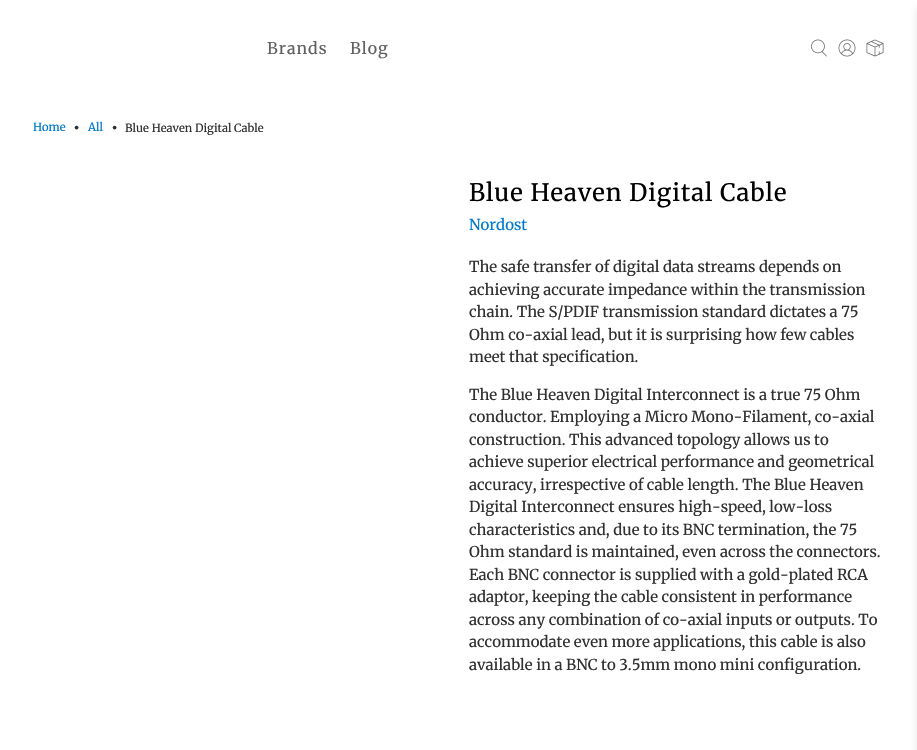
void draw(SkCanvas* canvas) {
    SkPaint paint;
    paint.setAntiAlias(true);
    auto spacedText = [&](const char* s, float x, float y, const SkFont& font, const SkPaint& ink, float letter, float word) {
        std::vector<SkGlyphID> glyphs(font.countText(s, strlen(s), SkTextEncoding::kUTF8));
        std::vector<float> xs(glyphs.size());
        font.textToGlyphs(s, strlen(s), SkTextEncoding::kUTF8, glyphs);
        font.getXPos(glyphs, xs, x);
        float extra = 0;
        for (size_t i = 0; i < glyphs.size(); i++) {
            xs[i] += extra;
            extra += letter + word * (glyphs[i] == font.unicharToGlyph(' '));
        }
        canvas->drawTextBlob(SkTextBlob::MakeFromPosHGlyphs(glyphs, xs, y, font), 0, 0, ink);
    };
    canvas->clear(0xFFFFFFFF);
    SkFont font1(fontMgr->matchFamilyStyle("Merriweather", SkFontStyle::Normal()), 16);
    font1.setSubpixel(true);
    paint.setColor(0xFF606060);
    spacedText("Brands", 267, 54, font1, paint, 1, 0);
    spacedText("Blog", 350, 54, font1, paint, 1, 0);
    canvas->drawImageRect(SkImages::DeferredFromEncodedData(SkData::MakeFromFileName("img1.png")), SkRect::MakeXYWH(811, 39, 16, 18), SkSamplingOptions());
    canvas->drawImageRect(SkImages::DeferredFromEncodedData(SkData::MakeFromFileName("img2.png")), SkRect::MakeXYWH(838, 39, 18, 18), SkSamplingOptions());
    canvas->drawImageRect(SkImages::DeferredFromEncodedData(SkData::MakeFromFileName("img3.png")), SkRect::MakeXYWH(866, 39, 18, 18), SkSamplingOptions());
    paint.setColor(0x1A0A0A0A);
    paint.setMaskFilter(SkMaskFilter::MakeBlur(kNormal_SkBlurStyle, 4));
    canvas->drawRect(SkRect::MakeXYWH(917, 8, 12, 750), paint);
    paint.setMaskFilter(nullptr);
    SkFont font2(fontMgr->matchFamilyStyle("Merriweather", SkFontStyle::Normal()), 11.25f);
    font2.setSubpixel(true);
    paint.setColor(0xFF007ACE);
    canvas->drawString("Home", 33, 131, font2, paint);
    paint.setColor(0xFF303030);
    canvas->drawCircle(76.6f, 127.6f, 1.9f, paint);
    paint.setColor(0xFF007ACE);
    canvas->drawString("All", 88, 131, font2, paint);
    paint.setColor(0xFF303030);
    canvas->drawCircle(114.6f, 127.6f, 1.9f, paint);
    canvas->drawString("Blue Heaven Digital Cable", 125, 132, font2, paint);
    SkFont font3(fontMgr->matchFamilyStyle("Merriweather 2", SkFontStyle::Normal()), 24);
    font3.setSubpixel(true);
    paint.setColor(0xFF000000);
    spacedText("Blue Heaven Digital Cable", 469, 201, font3, paint, 1, 0);
    SkFont font4(fontMgr->matchFamilyStyle("Merriweather", SkFontStyle::Normal()), 15);
    font4.setSubpixel(true);
    paint.setColor(0xFF007ACE);
    canvas->drawString("Nordost", 469, 230, font4, paint);
    paint.setColor(0xFF303030);
    canvas->drawString("The safe transfer of digital data streams depends on", 469, 272, font4, paint);
    canvas->drawString("achieving accurate impedance within the transmission", 469, 295, font4, paint);
    canvas->drawString("chain. The S/PDIF transmission standard dictates a 75", 469, 317, font4, paint);
    canvas->drawString("Ohm co-axial lead, but it is surprising how few cables", 469, 340, font4, paint);
    canvas->drawString("meet that specification.", 469, 362, font4, paint);
    canvas->drawString("The Blue Heaven Digital Interconnect is a true 75 Ohm", 469, 400, font4, paint);
    canvas->drawString("conductor. Employing a Micro Mono-Filament, co-axial", 469, 422, font4, paint);
    canvas->drawString("construction. This advanced topology allows us to", 469, 445, font4, paint);
    canvas->drawString("achieve superior electrical performance and geometrical", 469, 467, font4, paint);
    canvas->drawString("accuracy, irrespective of cable length. The Blue Heaven", 469, 490, font4, paint);
    canvas->drawString("Digital Interconnect ensures high-speed, low-loss", 469, 512, font4, paint);
    canvas->drawString("characteristics and, due to its BNC termination, the 75", 469, 535, font4, paint);
    canvas->drawString("Ohm standard is maintained, even across the connectors.", 469, 557, font4, paint);
    canvas->drawString("Each BNC connector is supplied with a gold-plated RCA", 469, 580, font4, paint);
    canvas->drawString("adaptor, keeping the cable consistent in performance", 469, 602, font4, paint);
    canvas->drawString("across any combination of co-axial inputs or outputs. To", 469, 625, font4, paint);
    canvas->drawString("accommodate even more applications, this cable is also", 469, 647, font4, paint);
    canvas->drawString("available in a BNC to 3.5mm mono mini configuration.", 469, 670, font4, paint);
}
